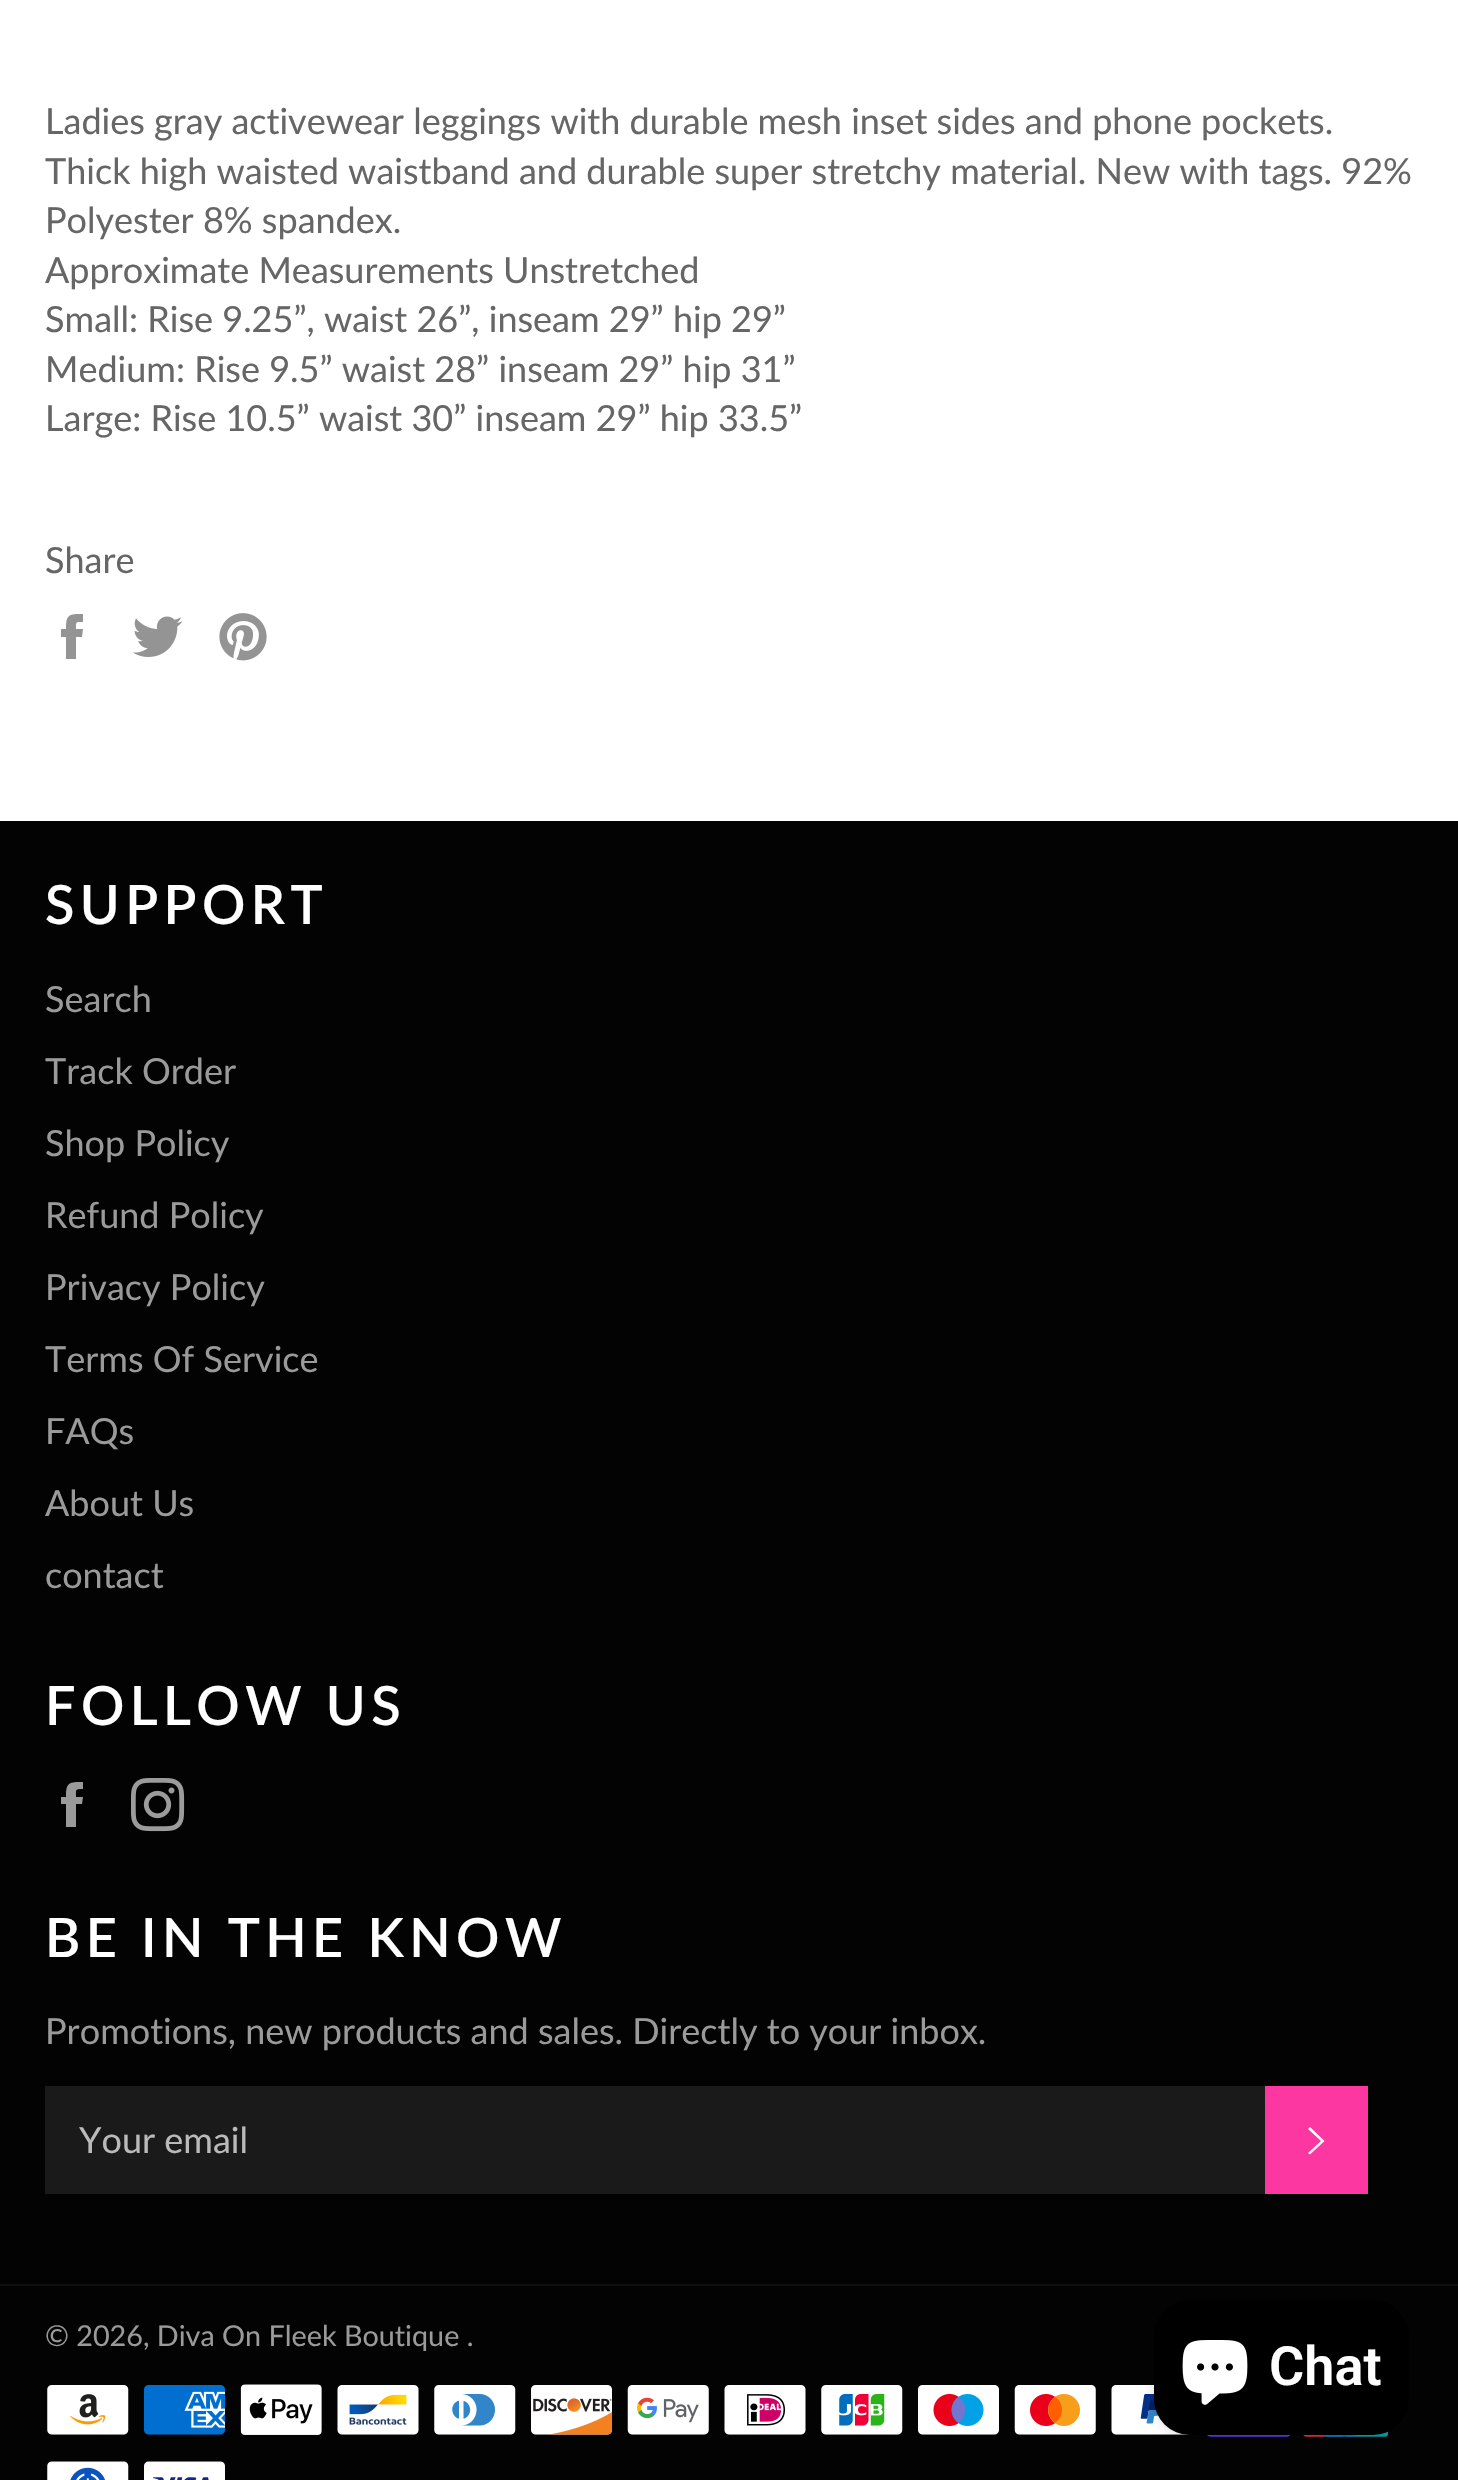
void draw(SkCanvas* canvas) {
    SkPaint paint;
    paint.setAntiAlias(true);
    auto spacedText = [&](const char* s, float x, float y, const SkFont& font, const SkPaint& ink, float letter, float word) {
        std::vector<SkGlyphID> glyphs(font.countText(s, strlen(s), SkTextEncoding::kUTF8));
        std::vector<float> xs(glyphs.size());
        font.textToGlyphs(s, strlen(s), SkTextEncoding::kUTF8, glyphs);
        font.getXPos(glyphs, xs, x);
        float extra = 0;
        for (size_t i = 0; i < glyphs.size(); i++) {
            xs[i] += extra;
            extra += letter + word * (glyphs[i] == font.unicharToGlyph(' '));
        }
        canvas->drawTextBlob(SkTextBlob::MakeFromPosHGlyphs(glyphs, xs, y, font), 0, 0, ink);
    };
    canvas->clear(0xFFFFFFFF);
    SkFont font1(fontMgr->matchFamilyStyle("Lato", SkFontStyle::Normal()), 36);
    font1.setSubpixel(true);
    paint.setColor(0xFF666666);
    canvas->drawString("Ladies gray activewear leggings with durable mesh inset sides and phone pockets.", 45, 134, font1, paint);
    canvas->drawString("Thick high waisted waistband and durable super stretchy material. New with tags. 92%", 45, 184, font1, paint);
    canvas->drawString("Polyester 8% spandex.", 45, 233, font1, paint);
    canvas->drawString("Approximate Measurements Unstretched", 45, 283, font1, paint);
    canvas->drawString("Small: Rise 9.25”, waist 26”, inseam 29” hip 29”", 45, 332, font1, paint);
    canvas->drawString("Medium: Rise 9.5” waist 28” inseam 29” hip 31”", 45, 382, font1, paint);
    canvas->drawString("Large: Rise 10.5” waist 30” inseam 29” hip 33.5”", 45, 431, font1, paint);
    canvas->drawString("Share", 45, 573, font1, paint);
    paint.setColor(0xFF949494);
    canvas->drawPath(SkPathBuilder().moveTo(76, 629).cubicTo(76, 622, 75, 622, 83, 622).lineTo(83, 614).cubicTo(69, 614, 66, 614, 66, 629).lineTo(61, 629).lineTo(61, 637).lineTo(66, 637).lineTo(66, 659).lineTo(76, 659).lineTo(76, 637).lineTo(82, 637).lineTo(83, 629).close().detach(), paint);
    canvas->drawImageRect(SkImages::DeferredFromEncodedData(SkData::MakeFromFileName("img1.png")), SkRect::MakeXYWH(133, 616, 50, 41), SkSamplingOptions());
    canvas->drawImageRect(SkImages::DeferredFromEncodedData(SkData::MakeFromFileName("img2.png")), SkRect::MakeXYWH(219, 613, 48, 48), SkSamplingOptions());
    paint.setColor(0xFF030303);
    canvas->drawRect(SkRect::MakeXYWH(0, 821, 1458, 1659), paint);
    SkFont font2(fontMgr->matchFamilyStyle("Lato", SkFontStyle(600, SkFontStyle::kNormal_Width, SkFontStyle::kUpright_Slant)), 54);
    font2.setSubpixel(true);
    paint.setColor(0xFFFFFFFF);
    spacedText("SUPPORT", 45, 924, font2, paint, 5.4f, 0);
    paint.setColor(0xFF9A9A9A);
    canvas->drawString("Search", 45, 1012, font1, paint);
    canvas->drawString("Track Order", 45, 1084, font1, paint);
    canvas->drawString("Shop Policy", 45, 1156, font1, paint);
    canvas->drawString("Refund Policy", 45, 1228, font1, paint);
    canvas->drawString("Privacy Policy", 45, 1300, font1, paint);
    canvas->drawString("Terms Of Service", 45, 1372, font1, paint);
    canvas->drawString("FAQs", 45, 1444, font1, paint);
    canvas->drawString("About Us", 45, 1516, font1, paint);
    canvas->drawString("contact", 45, 1588, font1, paint);
    paint.setColor(0xFFFFFFFF);
    spacedText("FOLLOW US", 45, 1725, font2, paint, 5.4f, 0);
    paint.setColor(0xFF9A9A9A);
    canvas->drawPath(SkPathBuilder().moveTo(76, 1797).cubicTo(76, 1789, 75, 1789, 83, 1789).lineTo(83, 1782).cubicTo(69, 1782, 66, 1782, 66, 1797).lineTo(61, 1797).lineTo(61, 1804).lineTo(66, 1804).lineTo(66, 1827).lineTo(76, 1827).lineTo(76, 1804).lineTo(82, 1804).lineTo(83, 1797).close().detach(), paint);
    canvas->drawImageRect(SkImages::DeferredFromEncodedData(SkData::MakeFromFileName("img3.png")), SkRect::MakeXYWH(131, 1778, 54, 54), SkSamplingOptions());
    paint.setColor(0xFFFFFFFF);
    spacedText("BE IN THE KNOW", 45, 1957, font2, paint, 5.4f, 0);
    paint.setColor(0xFF9A9A9A);
    canvas->drawString("Promotions, new products and sales. Directly to your inbox.", 45, 2044, font1, paint);
    paint.setColor(0xFF1A1A1A);
    canvas->drawRect(SkRect::MakeXYWH(45, 2086, 1220, 108), paint);
    paint.setColor(0xFFBABABA);
    canvas->drawString("Your email", 79, 2153, font1, paint);
    paint.setColor(0xFFFD37A2);
    canvas->drawRect(SkRect::MakeXYWH(1265, 2086, 103, 108), paint);
    paint.setColor(0xFFFFFFFF);
    canvas->drawPath(SkPathBuilder().moveTo(1308, 2129).lineTo(1310, 2127).lineTo(1324.5f, 2141).lineTo(1310, 2154.5f).lineTo(1308, 2153).lineTo(1321, 2141).close().detach(), paint);
    paint.setColor(0xFF101010);
    canvas->drawRect(SkRect::MakeXYWH(0, 2284, 1458, 2), paint);
    SkFont font3(fontMgr->matchFamilyStyle("Lato", SkFontStyle::Normal()), 28.75f);
    font3.setSubpixel(true);
    paint.setColor(0xFF9A9A9A);
    canvas->drawString("© 2026, Diva On Fleek Boutique .", 45, 2346, font3, paint);
    canvas->drawImageRect(SkImages::DeferredFromEncodedData(SkData::MakeFromFileName("img4.png")), SkRect::MakeXYWH(47, 2385, 82, 50), SkSamplingOptions());
    canvas->drawImageRect(SkImages::DeferredFromEncodedData(SkData::MakeFromFileName("img5.png")), SkRect::MakeXYWH(144, 2385, 81, 50), SkSamplingOptions());
    canvas->drawImageRect(SkImages::DeferredFromEncodedData(SkData::MakeFromFileName("img6.png")), SkRect::MakeXYWH(240, 2384, 82, 51), SkSamplingOptions());
    canvas->drawImageRect(SkImages::DeferredFromEncodedData(SkData::MakeFromFileName("img7.png")), SkRect::MakeXYWH(337, 2385, 82, 50), SkSamplingOptions());
    canvas->drawImageRect(SkImages::DeferredFromEncodedData(SkData::MakeFromFileName("img8.png")), SkRect::MakeXYWH(434, 2385, 82, 50), SkSamplingOptions());
    canvas->drawImageRect(SkImages::DeferredFromEncodedData(SkData::MakeFromFileName("img9.png")), SkRect::MakeXYWH(531, 2385, 82, 50), SkSamplingOptions());
    canvas->drawImageRect(SkImages::DeferredFromEncodedData(SkData::MakeFromFileName("img10.png")), SkRect::MakeXYWH(627, 2385, 82, 50), SkSamplingOptions());
    canvas->drawImageRect(SkImages::DeferredFromEncodedData(SkData::MakeFromFileName("img11.png")), SkRect::MakeXYWH(724, 2385, 82, 50), SkSamplingOptions());
    canvas->drawImageRect(SkImages::DeferredFromEncodedData(SkData::MakeFromFileName("img12.png")), SkRect::MakeXYWH(821, 2385, 82, 50), SkSamplingOptions());
    canvas->drawImageRect(SkImages::DeferredFromEncodedData(SkData::MakeFromFileName("img13.png")), SkRect::MakeXYWH(918, 2385, 81, 50), SkSamplingOptions());
    canvas->drawImageRect(SkImages::DeferredFromEncodedData(SkData::MakeFromFileName("img14.png")), SkRect::MakeXYWH(1014, 2385, 82, 50), SkSamplingOptions());
    canvas->drawImageRect(SkImages::DeferredFromEncodedData(SkData::MakeFromFileName("img15.png")), SkRect::MakeXYWH(1111, 2385, 79, 50), SkSamplingOptions());
    canvas->drawImageRect(SkImages::DeferredFromEncodedData(SkData::MakeFromFileName("img16.png")), SkRect::MakeXYWH(1207, 2435, 84, 2), SkSamplingOptions());
    canvas->drawImageRect(SkImages::DeferredFromEncodedData(SkData::MakeFromFileName("img17.png")), SkRect::MakeXYWH(1303, 2431, 85, 6), SkSamplingOptions());
    canvas->drawImageRect(SkImages::DeferredFromEncodedData(SkData::MakeFromFileName("img18.png")), SkRect::MakeXYWH(47, 2461, 82, 19), SkSamplingOptions());
    canvas->drawImageRect(SkImages::DeferredFromEncodedData(SkData::MakeFromFileName("img19.png")), SkRect::MakeXYWH(144, 2461, 81, 19), SkSamplingOptions());
    paint.setColor(0x26000000);
    paint.setMaskFilter(SkMaskFilter::MakeBlur(kNormal_SkBlurStyle, 5.5f));
    canvas->drawRoundRect(SkRect::MakeXYWH(1154, 2300, 255, 135), 36, 36, paint);
    paint.setMaskFilter(nullptr);
    paint.setColor(0xFF000000);
    canvas->drawRoundRect(SkRect::MakeXYWH(1154, 2300, 255, 135), 36, 36, paint);
    canvas->drawImageRect(SkImages::DeferredFromEncodedData(SkData::MakeFromFileName("img20.png")), SkRect::MakeXYWH(1182, 2340, 66, 65), SkSamplingOptions());
    SkFont font4(fontMgr->matchFamilyStyle("Roboto", SkFontStyle(600, SkFontStyle::kNormal_Width, SkFontStyle::kUpright_Slant)), 54);
    font4.setSubpixel(true);
    paint.setColor(0xFFFFFFFF);
    canvas->drawString("Chat", 1269, 2385, font4, paint);
}
